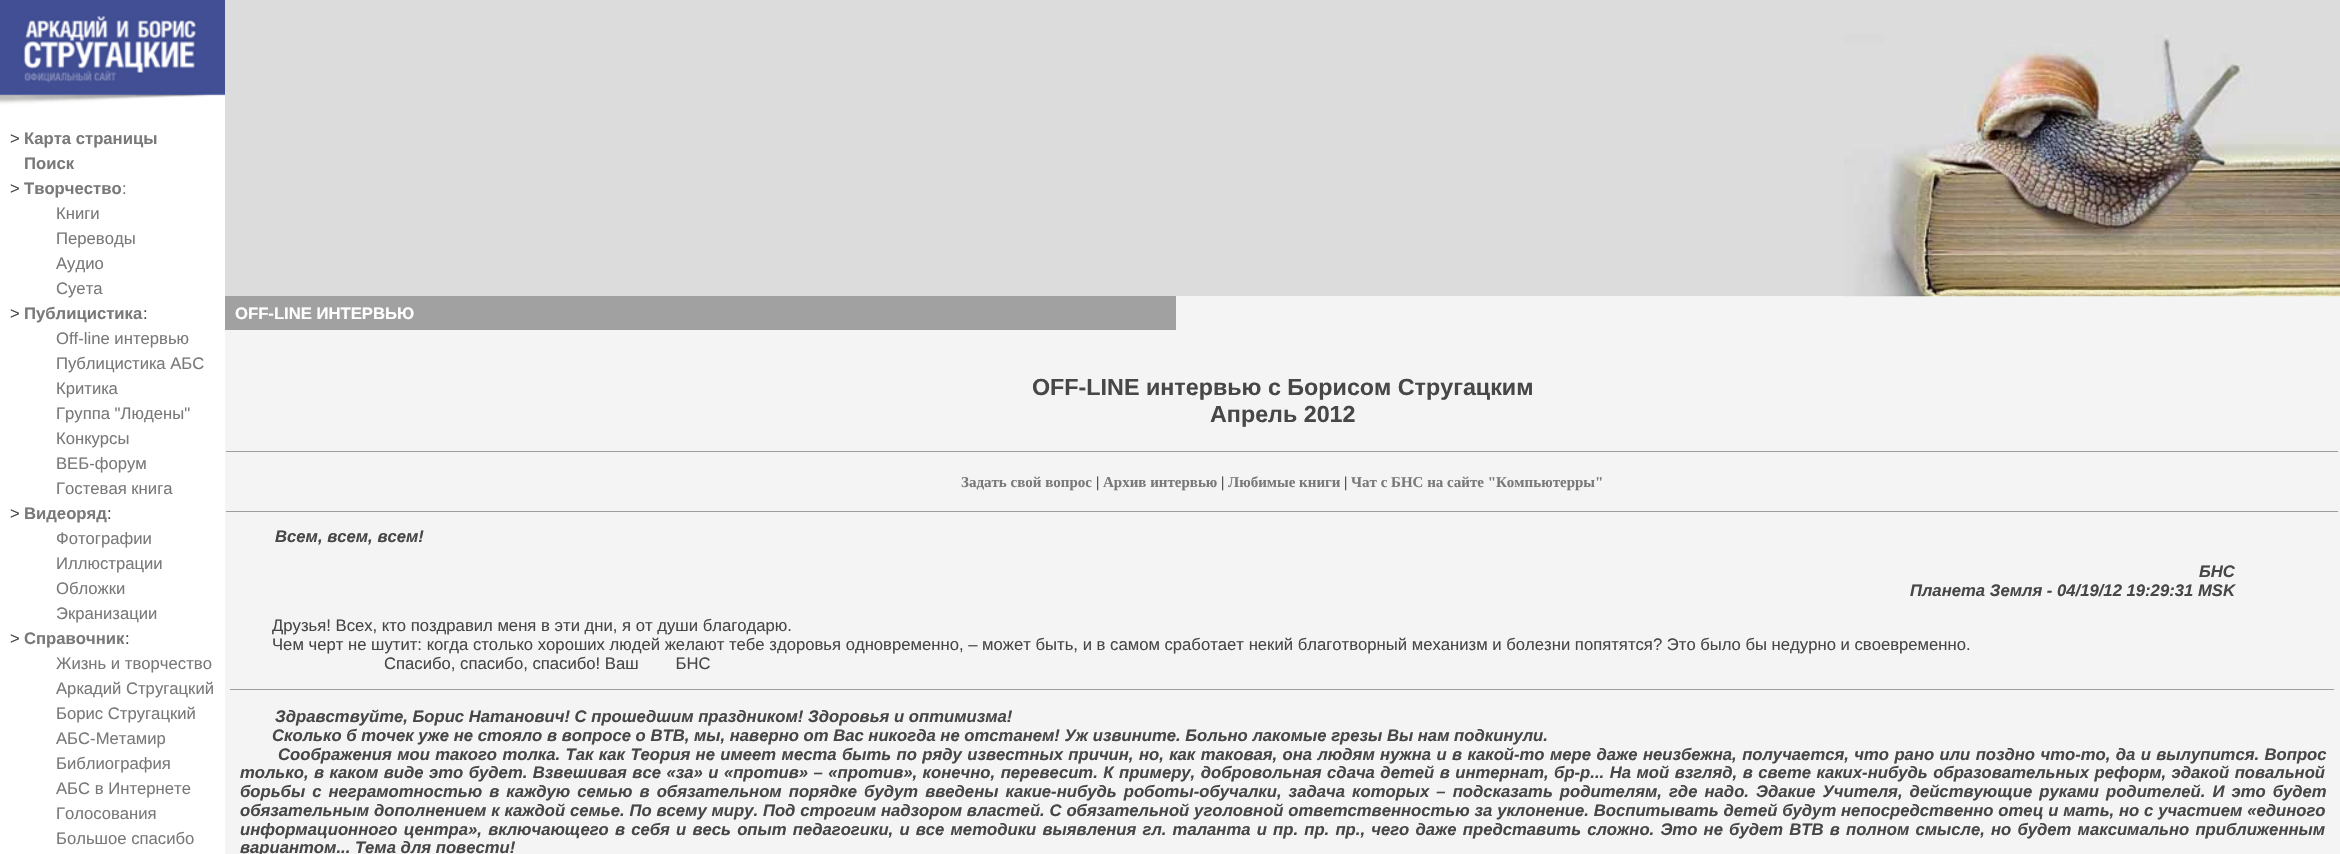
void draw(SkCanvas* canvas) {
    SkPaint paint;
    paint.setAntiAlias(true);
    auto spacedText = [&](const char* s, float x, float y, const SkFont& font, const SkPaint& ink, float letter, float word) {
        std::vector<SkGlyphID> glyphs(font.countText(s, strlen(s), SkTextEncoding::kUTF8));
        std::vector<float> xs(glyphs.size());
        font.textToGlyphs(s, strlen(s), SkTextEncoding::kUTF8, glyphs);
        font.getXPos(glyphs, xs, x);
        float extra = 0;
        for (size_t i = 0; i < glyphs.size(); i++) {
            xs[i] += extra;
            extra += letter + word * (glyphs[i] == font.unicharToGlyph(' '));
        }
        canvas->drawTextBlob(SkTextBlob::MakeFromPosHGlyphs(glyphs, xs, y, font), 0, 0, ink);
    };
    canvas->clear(0xFFFFFFFF);
    canvas->drawImageRect(SkImages::DeferredFromEncodedData(SkData::MakeFromFileName("img1.png")), SkRect::MakeXYWH(0, 0, 225, 105), SkSamplingOptions());
    SkFont font1(fontMgr->matchFamilyStyle("Liberation Sans", SkFontStyle::Normal()), 16.67f);
    font1.setSubpixel(true);
    paint.setColor(0xFF474747);
    canvas->drawString(">", 10, 144, font1, paint);
    SkFont font2(fontMgr->matchFamilyStyle("Liberation Sans", SkFontStyle::Bold()), 16.67f);
    font2.setSubpixel(true);
    paint.setColor(0xFF797979);
    canvas->drawString("Карта страницы", 24, 144, font2, paint);
    canvas->drawString("Поиск", 24, 169, font2, paint);
    paint.setColor(0xFF474747);
    canvas->drawString(">", 10, 194, font1, paint);
    paint.setColor(0xFF797979);
    canvas->drawString("Творчество", 24, 194, font2, paint);
    canvas->drawString(":", 122, 194, font1, paint);
    canvas->drawString("Книги", 56, 219, font1, paint);
    canvas->drawString("Переводы", 56, 244, font1, paint);
    canvas->drawString("Аудио", 56, 269, font1, paint);
    canvas->drawString("Суета", 56, 294, font1, paint);
    paint.setColor(0xFF474747);
    canvas->drawString(">", 10, 319, font1, paint);
    paint.setColor(0xFF797979);
    canvas->drawString("Публицистика", 24, 319, font2, paint);
    paint.setColor(0xFF474747);
    canvas->drawString(":", 143, 319, font1, paint);
    paint.setColor(0xFF797979);
    canvas->drawString("Off-line интервью", 56, 344, font1, paint);
    canvas->drawString("Публицистика АБС", 56, 369, font1, paint);
    canvas->drawString("Критика", 56, 394, font1, paint);
    canvas->drawString("Группа \"Людены\"", 56, 419, font1, paint);
    canvas->drawString("Конкурсы", 56, 444, font1, paint);
    canvas->drawString("ВЕБ-форум", 56, 469, font1, paint);
    canvas->drawString("Гостевая книга", 56, 494, font1, paint);
    paint.setColor(0xFF474747);
    canvas->drawString(">", 10, 519, font1, paint);
    paint.setColor(0xFF797979);
    canvas->drawString("Видеоряд", 24, 519, font2, paint);
    paint.setColor(0xFF474747);
    canvas->drawString(":", 107, 519, font1, paint);
    paint.setColor(0xFF797979);
    canvas->drawString("Фотографии", 56, 544, font1, paint);
    canvas->drawString("Иллюстрации", 56, 569, font1, paint);
    canvas->drawString("Обложки", 56, 594, font1, paint);
    canvas->drawString("Экранизации", 56, 619, font1, paint);
    paint.setColor(0xFF474747);
    canvas->drawString(">", 10, 644, font1, paint);
    paint.setColor(0xFF797979);
    canvas->drawString("Справочник", 24, 644, font2, paint);
    paint.setColor(0xFF474747);
    canvas->drawString(":", 125, 644, font1, paint);
    paint.setColor(0xFF797979);
    canvas->drawString("Жизнь и творчество", 56, 669, font1, paint);
    canvas->drawString("Аркадий Стругацкий", 56, 694, font1, paint);
    canvas->drawString("Борис Стругацкий", 56, 719, font1, paint);
    canvas->drawString("АБС-Метамир", 56, 744, font1, paint);
    canvas->drawString("Библиография", 56, 769, font1, paint);
    canvas->drawString("АБС в Интернете", 56, 794, font1, paint);
    canvas->drawString("Голосования", 56, 819, font1, paint);
    canvas->drawString("Большое спасибо", 56, 844, font1, paint);
    paint.setColor(0xFFDCDCDC);
    canvas->drawRect(SkRect::MakeXYWH(225, 0, 2115, 296), paint);
    paint.setColor(0xFFF4F4F4);
    canvas->drawRect(SkRect::MakeXYWH(1176, 296, 1164, 34), paint);
    canvas->drawImageRect(SkImages::DeferredFromEncodedData(SkData::MakeFromFileName("img2.png")), SkRect::MakeXYWH(1844, 34, 496, 263), SkSamplingOptions());
    paint.setColor(0xFFA1A1A1);
    canvas->drawRect(SkRect::MakeXYWH(225, 296, 951, 34), paint);
    paint.setColor(0xFFFFFFFF);
    canvas->drawString("OFF-LINE ИНТЕРВЬЮ", 235, 319, font2, paint);
    paint.setColor(0xFFF4F4F4);
    canvas->drawRect(SkRect::MakeXYWH(225, 330, 2115, 524), paint);
    SkFont font3(fontMgr->matchFamilyStyle("Liberation Sans", SkFontStyle::Bold()), 23.3f);
    font3.setSubpixel(true);
    paint.setColor(0xFF474747);
    canvas->drawString("OFF-LINE интервью с Борисом Стругацким", 1032, 395, font3, paint);
    canvas->drawString("Апрель 2012", 1210, 422, font3, paint);
    paint.setColor(0xFF9F9F9F);
    canvas->drawRect(SkRect::MakeXYWH(226, 451, 2113, 1), paint);
    paint.setColor(0xFFEEEEEE);
    canvas->drawRect(SkRect::MakeXYWH(2338, 451, 1, 1), paint);
    SkFont font4(fontMgr->matchFamilyStyle("Liberation Serif", SkFontStyle::Bold()), 15);
    font4.setSubpixel(true);
    paint.setColor(0xFF797979);
    canvas->drawString("Задать свой вопрос", 961, 487, font4, paint);
    paint.setColor(0xFF474747);
    canvas->drawString("|", 1096, 487, font4, paint);
    paint.setColor(0xFF797979);
    canvas->drawString("Архив интервью", 1103, 487, font4, paint);
    paint.setColor(0xFF474747);
    canvas->drawString("|", 1221, 487, font4, paint);
    paint.setColor(0xFF797979);
    canvas->drawString("Любимые книги", 1228, 487, font4, paint);
    paint.setColor(0xFF474747);
    canvas->drawString("|", 1344, 487, font4, paint);
    paint.setColor(0xFF797979);
    canvas->drawString("Чат с БНС на сайте \"Компьютерры\"", 1351, 487, font4, paint);
    paint.setColor(0xFF9F9F9F);
    canvas->drawRect(SkRect::MakeXYWH(226, 511, 2113, 1), paint);
    paint.setColor(0xFFEEEEEE);
    canvas->drawRect(SkRect::MakeXYWH(2338, 511, 1, 1), paint);
    SkFont font5(fontMgr->matchFamilyStyle("Liberation Sans", SkFontStyle::BoldItalic()), 16.67f);
    font5.setSubpixel(true);
    paint.setColor(0xFF474747);
    canvas->drawString("Всем, всем, всем!", 275, 542, font5, paint);
    canvas->drawString("БНС", 2199, 577, font5, paint);
    canvas->drawString("Планета Земля - 04/19/12 19:29:31 MSK", 1910, 596, font5, paint);
    canvas->drawString("Друзья! Всех, кто поздравил меня в эти дни, я от души благодарю.", 272, 631, font1, paint);
    canvas->drawString("Чем черт не шутит: когда столько хороших людей желают тебе здоровья одновременно, – может быть, и в самом сработает некий благотворный механизм и болезни попятятся? Это было бы недурно и своевременно.", 272, 650, font1, paint);
    canvas->drawString("Спасибо, спасибо, спасибо! Ваш        БНС", 384, 669, font1, paint);
    paint.setColor(0xFF9F9F9F);
    canvas->drawRect(SkRect::MakeXYWH(230, 689, 2105, 1), paint);
    paint.setColor(0xFFEEEEEE);
    canvas->drawRect(SkRect::MakeXYWH(2334, 689, 1, 1), paint);
    paint.setColor(0xFF474747);
    canvas->drawString("Здравствуйте, Борис Натанович! С прошедшим праздником! Здоровья и оптимизма!", 275, 722, font5, paint);
    canvas->drawString("Сколько б точек уже не стояло в вопросе о ВТВ, мы, наверно от Вас никогда не отстанем! Уж извините. Больно лакомые грезы Вы нам подкинули.", 272, 741, font5, paint);
    spacedText("Соображения мои такого толка. Так как Теория не имеет места быть по ряду известных причин, но, как таковая, она людям нужна и в какой-то мере даже неизбежна, получается, что рано или поздно что-то, да и вылупится. Вопрос", 278, 760, font5, paint, 0, 0.75f);
    spacedText("только, в каком виде это будет. Взвешивая все «за» и «против» – «против», конечно, перевесит. К примеру, добровольная сдача детей в интернат, бр-р... На мой взгляд, в свете каких-нибудь образовательных реформ, эдакой повальной", 240, 778, font5, paint, 0, 0.85f);
    spacedText("борьбы с неграмотностью в каждую семью в обязательном порядке будут введены какие-нибудь роботы-обучалки, задача которых – подсказать родителям, где надо. Эдакие Учителя, действующие руками родителей. И это будет", 240, 797, font5, paint, 0, 2.4f);
    spacedText("обязательным дополнением к каждой семье. По всему миру. Под строгим надзором властей. С обязательной уголовной ответственностью за уклонение. Воспитывать детей будут непосредственно отец и мать, но с участием «единого", 240, 816, font5, paint, 0, 0.2f);
    spacedText("информационного центра», включающего в себя и весь опыт педагогики, и все методики выявления гл. таланта и пр. пр. пр., чего даже представить сложно. Это не будет ВТВ в полном смысле, но будет максимально приближенным", 240, 835, font5, paint, 0, 1.55f);
    canvas->drawString("вариантом... Тема для повести!", 240, 853, font5, paint);
}
